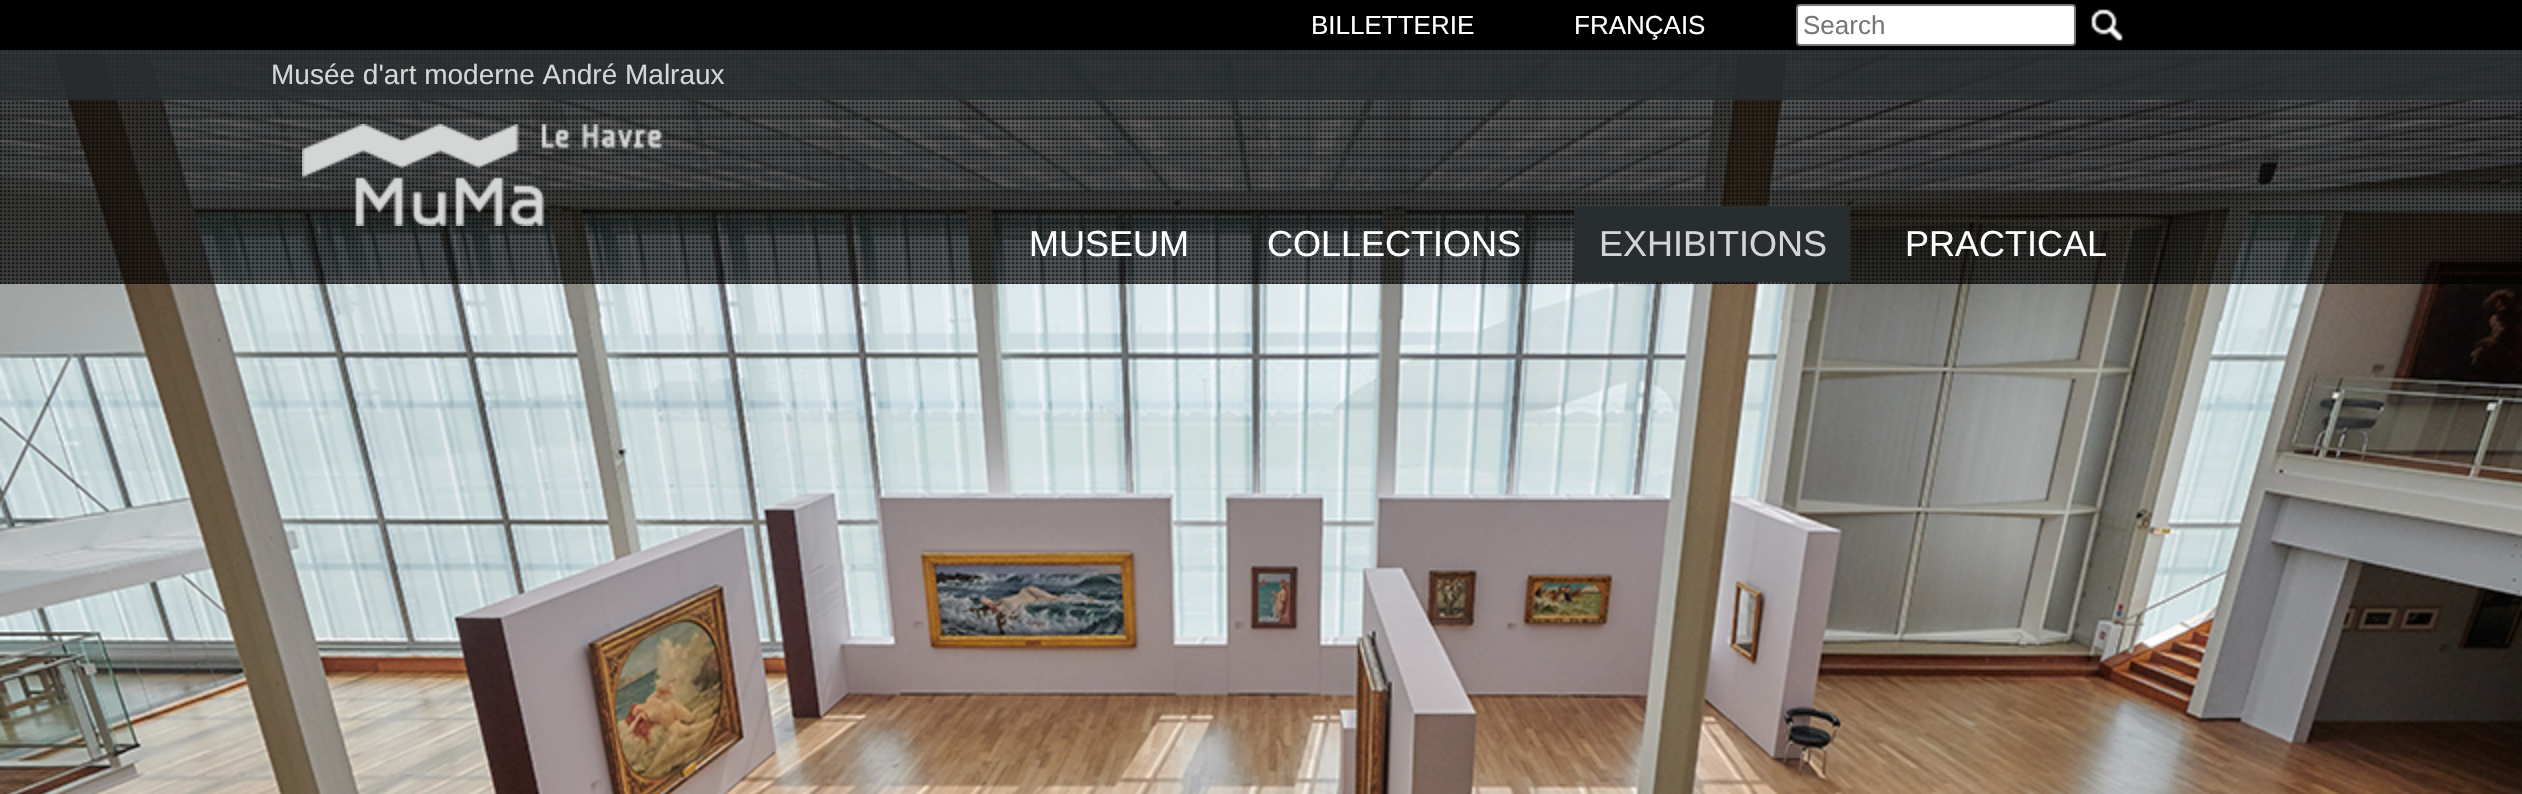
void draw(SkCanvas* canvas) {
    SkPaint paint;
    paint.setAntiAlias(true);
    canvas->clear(0xFFFFFFFF);
    paint.setColor(0xFF000000);
    canvas->drawRect(SkRect::MakeXYWH(0, 0, 2522, 50), paint);
    SkFont font1(fontMgr->matchFamilyStyle("Liberation Sans", SkFontStyle::Normal()), 26);
    font1.setSubpixel(true);
    paint.setColor(0xFFFFFFFF);
    canvas->drawString("BILLETTERIE", 1311, 34, font1, paint);
    canvas->drawString("FRANÇAIS", 1574, 34, font1, paint);
    canvas->drawRoundRect(SkRect::MakeXYWH(1797, 5, 278, 40), 3, 3, paint);
    paint.setStyle(SkPaint::kStroke_Style);
    paint.setStrokeWidth(2);
    paint.setColor(0xFF767676);
    canvas->drawRoundRect(SkRect::MakeXYWH(1797, 5, 278, 40), 3, 3, paint);
    paint.setStyle(SkPaint::kFill_Style);
    paint.setColor(0xFF777777);
    canvas->drawString("Search", 1803, 34, font1, paint);
    canvas->drawImageRect(SkImages::DeferredFromEncodedData(SkData::MakeFromFileName("img1.png")), SkRect::MakeXYWH(2090, 9, 33, 32), SkSamplingOptions());
    canvas->drawImageRect(SkImages::DeferredFromEncodedData(SkData::MakeFromFileName("img2.png")), SkRect::MakeXYWH(0, 54, 2522, 740), SkSamplingOptions());
    canvas->drawImageRect(SkImages::DeferredFromEncodedData(SkData::MakeFromFileName("img3.png")), SkRect::MakeXYWH(0, 50, 2522, 50), SkSamplingOptions());
    SkFont font2(fontMgr->matchFamilyStyle("Liberation Sans", SkFontStyle::Normal()), 28);
    font2.setSubpixel(true);
    paint.setColor(0xFFD4D5D5);
    canvas->drawString("Musée d'art moderne André Malraux", 271, 84, font2, paint);
    canvas->drawImageRect(SkImages::DeferredFromEncodedData(SkData::MakeFromFileName("img4.png")), SkRect::MakeXYWH(0, 100, 2522, 184), SkSamplingOptions());
    canvas->drawImageRect(SkImages::DeferredFromEncodedData(SkData::MakeFromFileName("img5.png")), SkRect::MakeXYWH(302, 124, 360, 102), SkSamplingOptions());
    SkFont font3(fontMgr->matchFamilyStyle("Liberation Sans", SkFontStyle::Normal()), 36);
    font3.setSubpixel(true);
    paint.setColor(0xFFFFFFFF);
    canvas->drawString("MUSEUM", 1029, 256, font3, paint);
    canvas->drawString("COLLECTIONS", 1267, 256, font3, paint);
    paint.setColor(0xFF282D30);
    canvas->drawRect(SkRect::MakeXYWH(1574, 206, 276, 76), paint);
    paint.setColor(0xFFD4D5D5);
    canvas->drawString("EXHIBITIONS", 1599, 256, font3, paint);
    paint.setColor(0xFFFFFFFF);
    canvas->drawString("PRACTICAL", 1905, 256, font3, paint);
}
